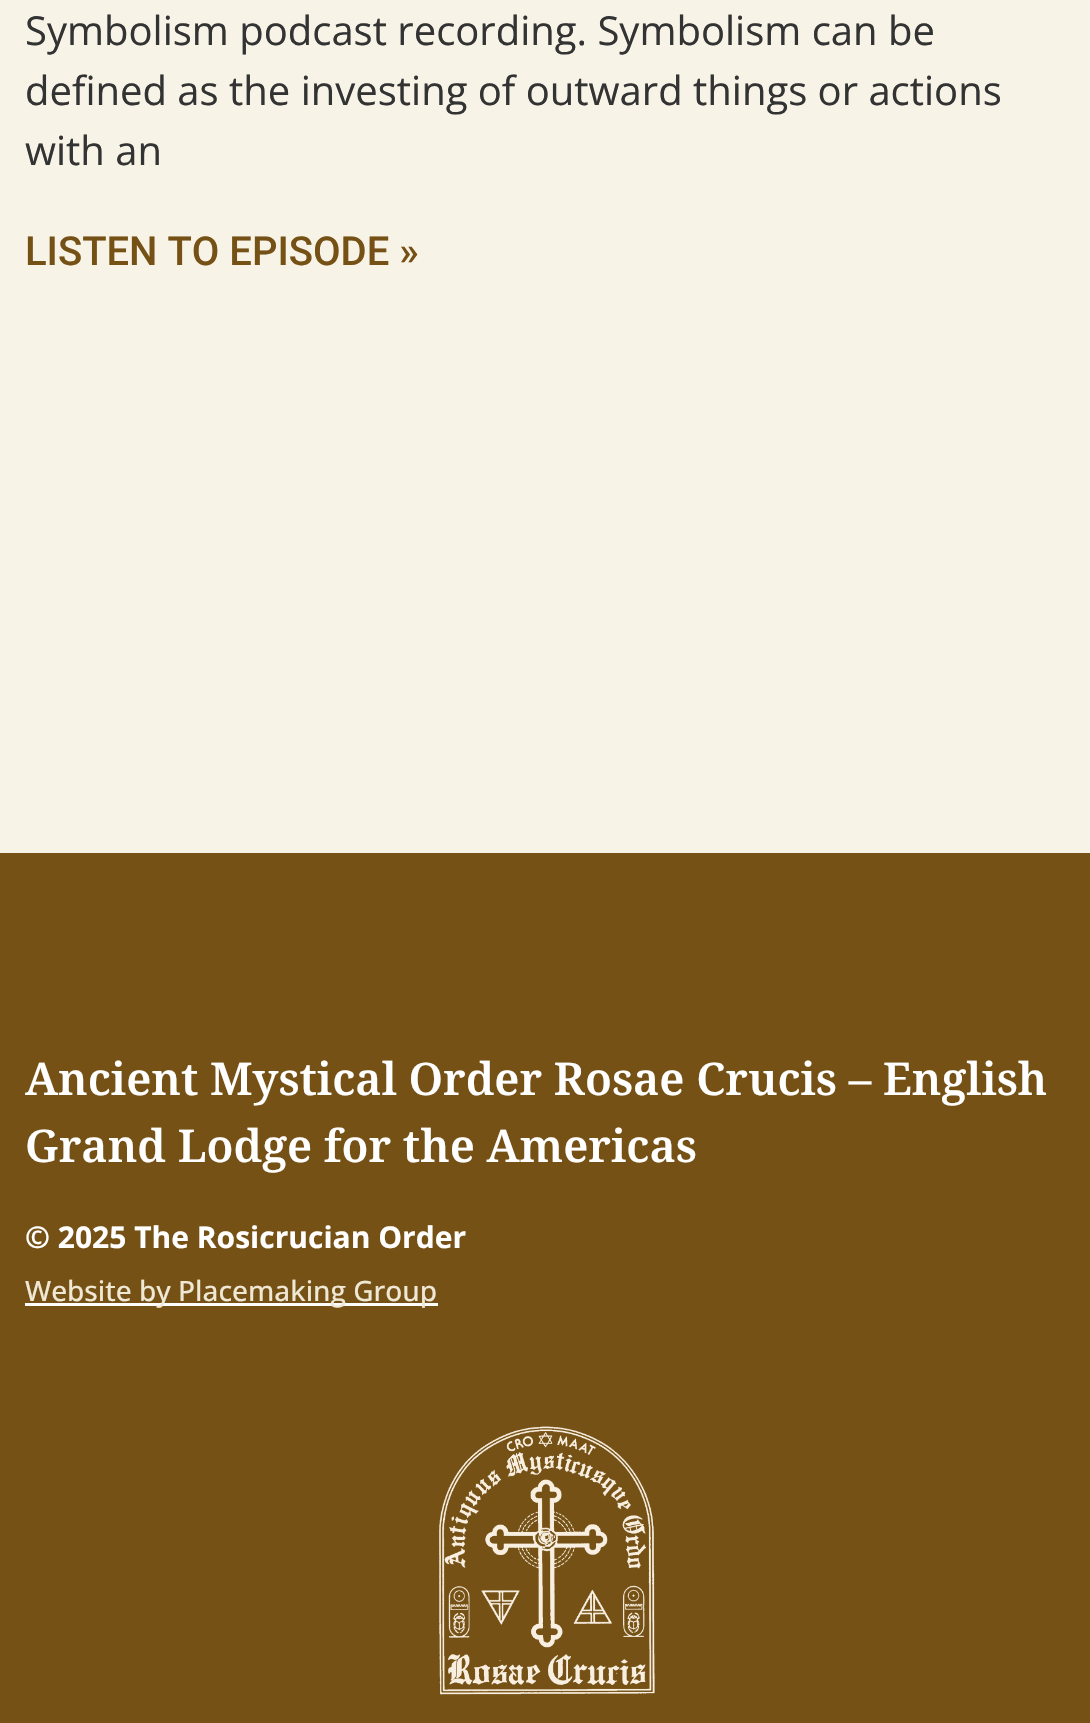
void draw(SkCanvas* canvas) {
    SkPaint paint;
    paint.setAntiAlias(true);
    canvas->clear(0xFFF8F3E7);
    SkFont font1(fontMgr->matchFamilyStyle("Open Sans", SkFontStyle::Normal()), 40);
    font1.setSubpixel(true);
    paint.setColor(0xFF333333);
    canvas->drawString("Symbolism podcast recording. Symbolism can be", 25, 45, font1, paint);
    canvas->drawString("defined as the investing of outward things or actions", 25, 105, font1, paint);
    canvas->drawString("with an", 25, 165, font1, paint);
    SkFont font2(fontMgr->matchFamilyStyle("Roboto", SkFontStyle(500, SkFontStyle::kNormal_Width, SkFontStyle::kUpright_Slant)), 40);
    font2.setSubpixel(true);
    paint.setColor(0xFF755116);
    canvas->drawString("LISTEN TO EPISODE »", 25, 265, font2, paint);
    canvas->drawRect(SkRect::MakeXYWH(0, 853, 1090, 870), paint);
    SkFont font3(fontMgr->matchFamilyStyle("Noto Serif", SkFontStyle(600, SkFontStyle::kNormal_Width, SkFontStyle::kUpright_Slant)), 45);
    font3.setSubpixel(true);
    paint.setColor(0xFFFFFFFF);
    canvas->drawString("Ancient Mystical Order Rosae Crucis – English", 25, 1095, font3, paint);
    canvas->drawString("Grand Lodge for the Americas", 25, 1162, font3, paint);
    SkFont font4(fontMgr->matchFamilyStyle("Open Sans", SkFontStyle::Bold()), 30);
    font4.setSubpixel(true);
    canvas->drawString("© 2025 The Rosicrucian Order", 25, 1248, font4, paint);
    canvas->drawRect(SkRect::MakeXYWH(25, 1303, 413, 3), paint);
    SkFont font5(fontMgr->matchFamilyStyle("Open Sans", SkFontStyle(500, SkFontStyle::kNormal_Width, SkFontStyle::kUpright_Slant)), 28);
    font5.setSubpixel(true);
    paint.setColor(0xFFEFE8D4);
    canvas->drawString("Website by Placemaking Group", 25, 1301, font5, paint);
    canvas->drawImageRect(SkImages::DeferredFromEncodedData(SkData::MakeFromFileName("img1.png")), SkRect::MakeXYWH(439, 1426, 216, 269), SkSamplingOptions());
}
